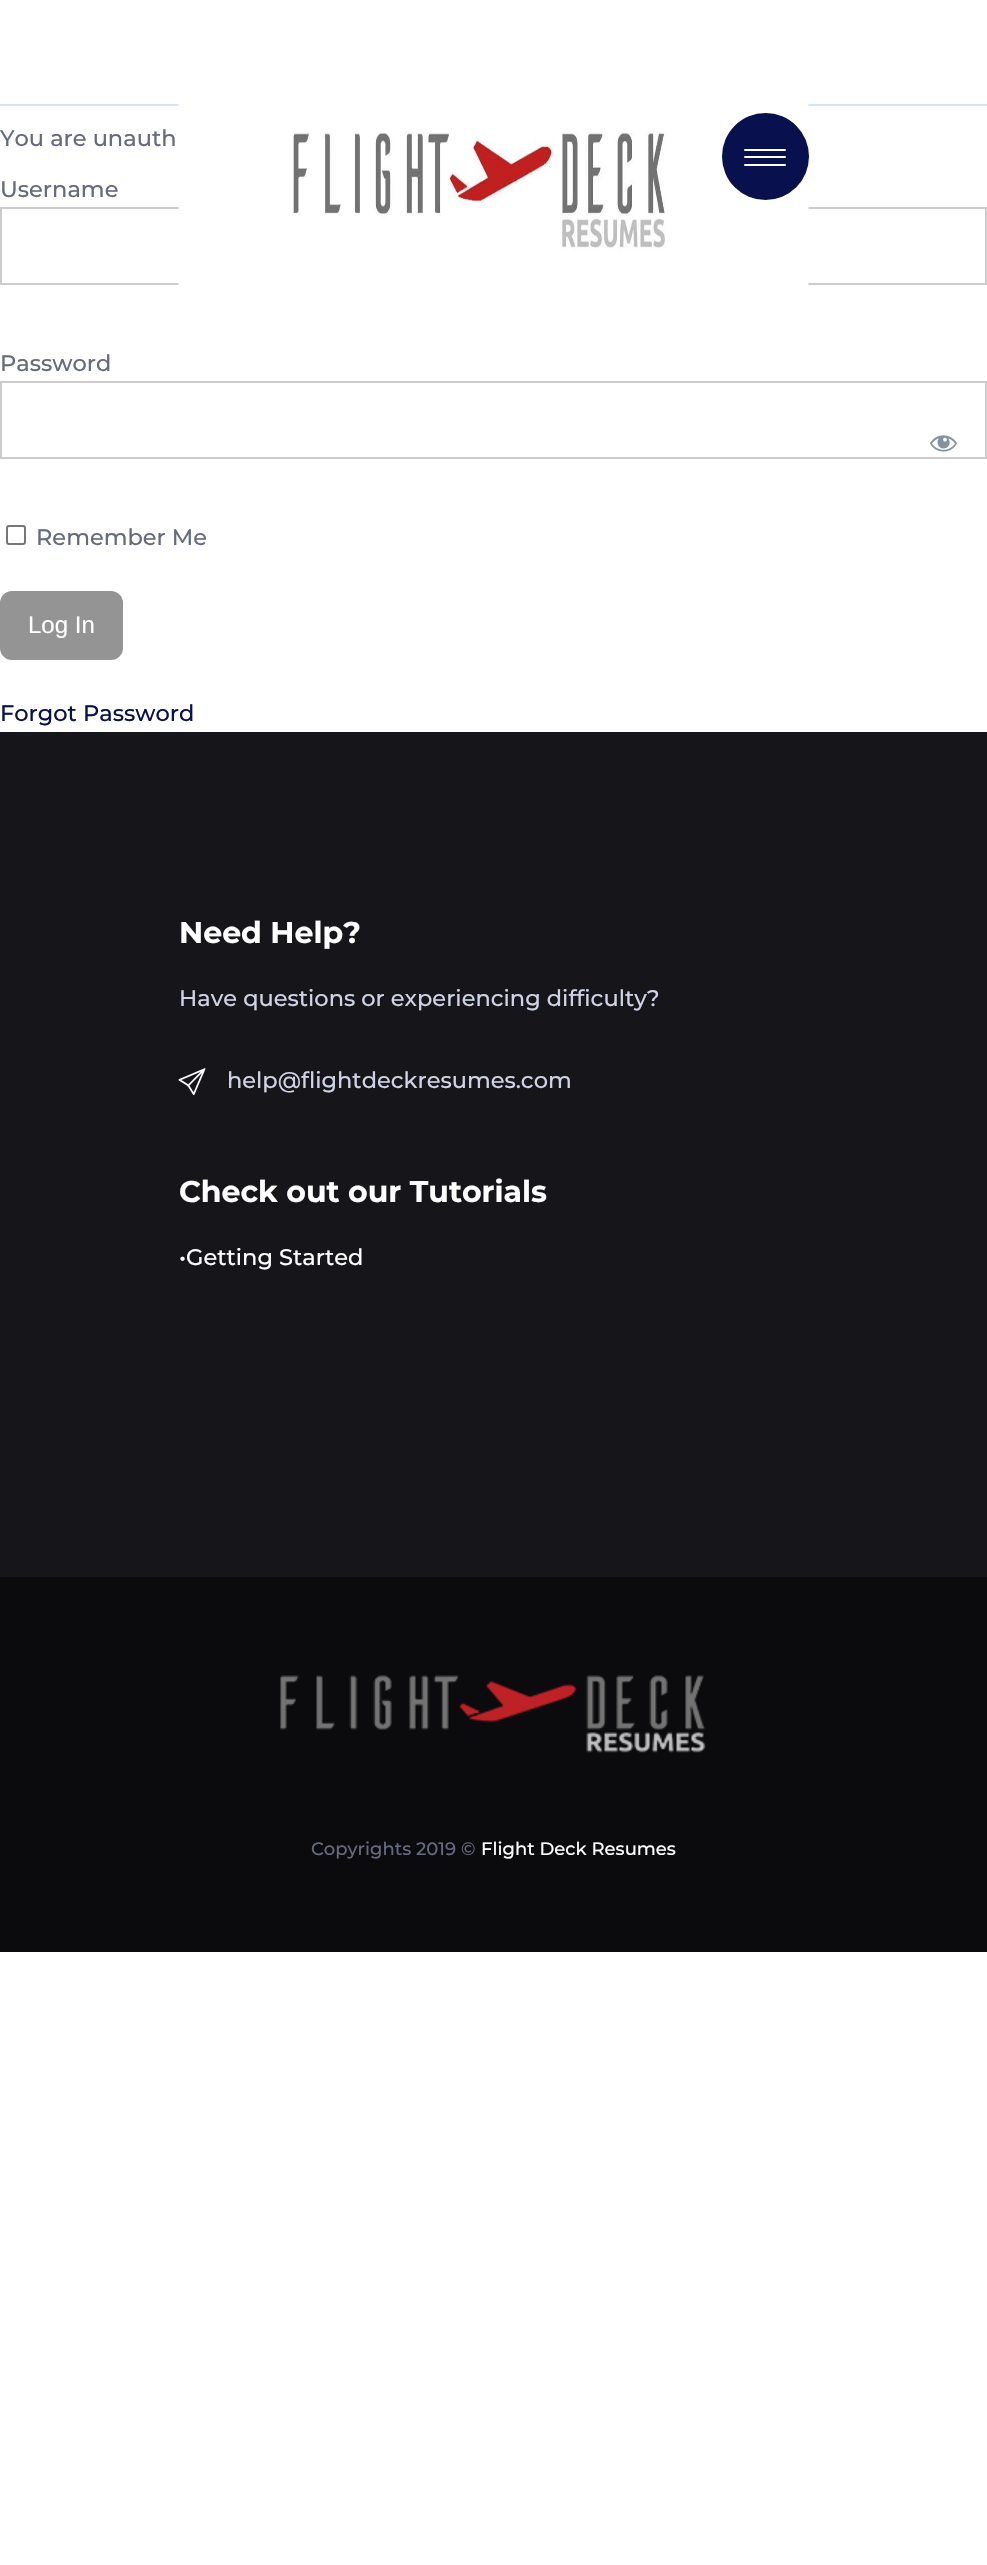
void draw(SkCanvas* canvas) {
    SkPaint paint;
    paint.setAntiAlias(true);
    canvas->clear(0xFFFFFFFF);
    paint.setColor(0xFFD7E3F7);
    canvas->drawRect(SkRect::MakeXYWH(0, 104, 987, 2), paint);
    paint.setStyle(SkPaint::kStroke_Style);
    paint.setStrokeWidth(2);
    paint.setColor(0xFFCCCCCC);
    canvas->drawRect(SkRect::MakeXYWH(1, 208, 985, 76), paint);
    canvas->drawImageRect(SkImages::DeferredFromEncodedData(SkData::MakeFromFileName("img1.png")), SkRect::MakeXYWH(178, 104, 631, 181), SkSamplingOptions());
    paint.setStyle(SkPaint::kFill_Style);
    paint.setColor(0xFF08104D);
    canvas->drawCircle(765.5f, 156.5f, 43.5f, paint);
    paint.setColor(0xFFFFFFFF);
    canvas->drawRoundRect(SkRect::MakeXYWH(744, 149, 42, 2), 1, 1, paint);
    canvas->drawRoundRect(SkRect::MakeXYWH(744, 156, 42, 2), 1, 1, paint);
    canvas->drawRoundRect(SkRect::MakeXYWH(744, 164, 42, 2), 1, 1, paint);
    SkFont font1(fontMgr->matchFamilyStyle("Montserrat", SkFontStyle(500, SkFontStyle::kNormal_Width, SkFontStyle::kUpright_Slant)), 22.5f);
    font1.setSubpixel(true);
    paint.setColor(0xFF666A80);
    canvas->drawString("You are unauth", 0, 146, font1, paint);
    canvas->drawString("Username", 0, 197, font1, paint);
    canvas->drawString("Password", 0, 371, font1, paint);
    paint.setStyle(SkPaint::kStroke_Style);
    paint.setColor(0xFFCCCCCC);
    canvas->drawRect(SkRect::MakeXYWH(1, 382, 985, 76), paint);
    canvas->drawImageRect(SkImages::DeferredFromEncodedData(SkData::MakeFromFileName("img2.png")), SkRect::MakeXYWH(930, 435, 28, 17), SkSamplingOptions());
    paint.setColor(0xFF767676);
    canvas->drawRoundRect(SkRect::MakeXYWH(7, 526, 18, 18), 2, 2, paint);
    paint.setStyle(SkPaint::kFill_Style);
    paint.setColor(0xFF666A80);
    canvas->drawString("Remember Me", 36, 545, font1, paint);
    paint.setColor(0xFF949494);
    canvas->drawRoundRect(SkRect::MakeXYWH(1, 592, 121, 67), 11, 11, paint);
    paint.setStyle(SkPaint::kStroke_Style);
    canvas->drawRoundRect(SkRect::MakeXYWH(1, 592, 121, 67), 11, 11, paint);
    SkFont font2(fontMgr->matchFamilyStyle("Liberation Sans", SkFontStyle::Normal()), 24);
    font2.setSubpixel(true);
    paint.setStyle(SkPaint::kFill_Style);
    paint.setColor(0xFFFFFFFF);
    canvas->drawString("Log In", 28, 633, font2, paint);
    paint.setColor(0xFF08104D);
    canvas->drawString("Forgot Password", 0, 721, font1, paint);
    paint.setColor(0xFF16161A);
    canvas->drawRect(SkRect::MakeXYWH(0, 732, 987, 845), paint);
    SkFont font3(fontMgr->matchFamilyStyle("Montserrat", SkFontStyle::Bold()), 30);
    font3.setSubpixel(true);
    paint.setColor(0xFFFFFFFF);
    canvas->drawString("Need Help?", 179, 943, font3, paint);
    paint.setColor(0xFFCFD3E5);
    canvas->drawString("Have questions or experiencing difficulty?", 179, 1006, font1, paint);
    canvas->drawImageRect(SkImages::DeferredFromEncodedData(SkData::MakeFromFileName("img3.png")), SkRect::MakeXYWH(178, 1068, 28, 28), SkSamplingOptions());
    canvas->drawString("help@flightdeckresumes.com", 227, 1088, font1, paint);
    paint.setColor(0xFFFFFFFF);
    canvas->drawString("Check out our Tutorials", 179, 1202, font3, paint);
    canvas->drawString("•Getting Started", 179, 1265, font1, paint);
    paint.setColor(0xFF0B0B0D);
    canvas->drawRect(SkRect::MakeXYWH(0, 1577, 987, 375), paint);
    canvas->drawImageRect(SkImages::DeferredFromEncodedData(SkData::MakeFromFileName("img4.png")), SkRect::MakeXYWH(280, 1675, 426, 78), SkSamplingOptions());
    SkFont font4(fontMgr->matchFamilyStyle("Montserrat", SkFontStyle(500, SkFontStyle::kNormal_Width, SkFontStyle::kUpright_Slant)), 18);
    font4.setSubpixel(true);
    paint.setColor(0xFF666A80);
    canvas->drawString("Copyrights 2019 ©", 311, 1855, font4, paint);
    paint.setColor(0xFFFFFFFF);
    canvas->drawString("Flight Deck Resumes", 481, 1855, font4, paint);
}
